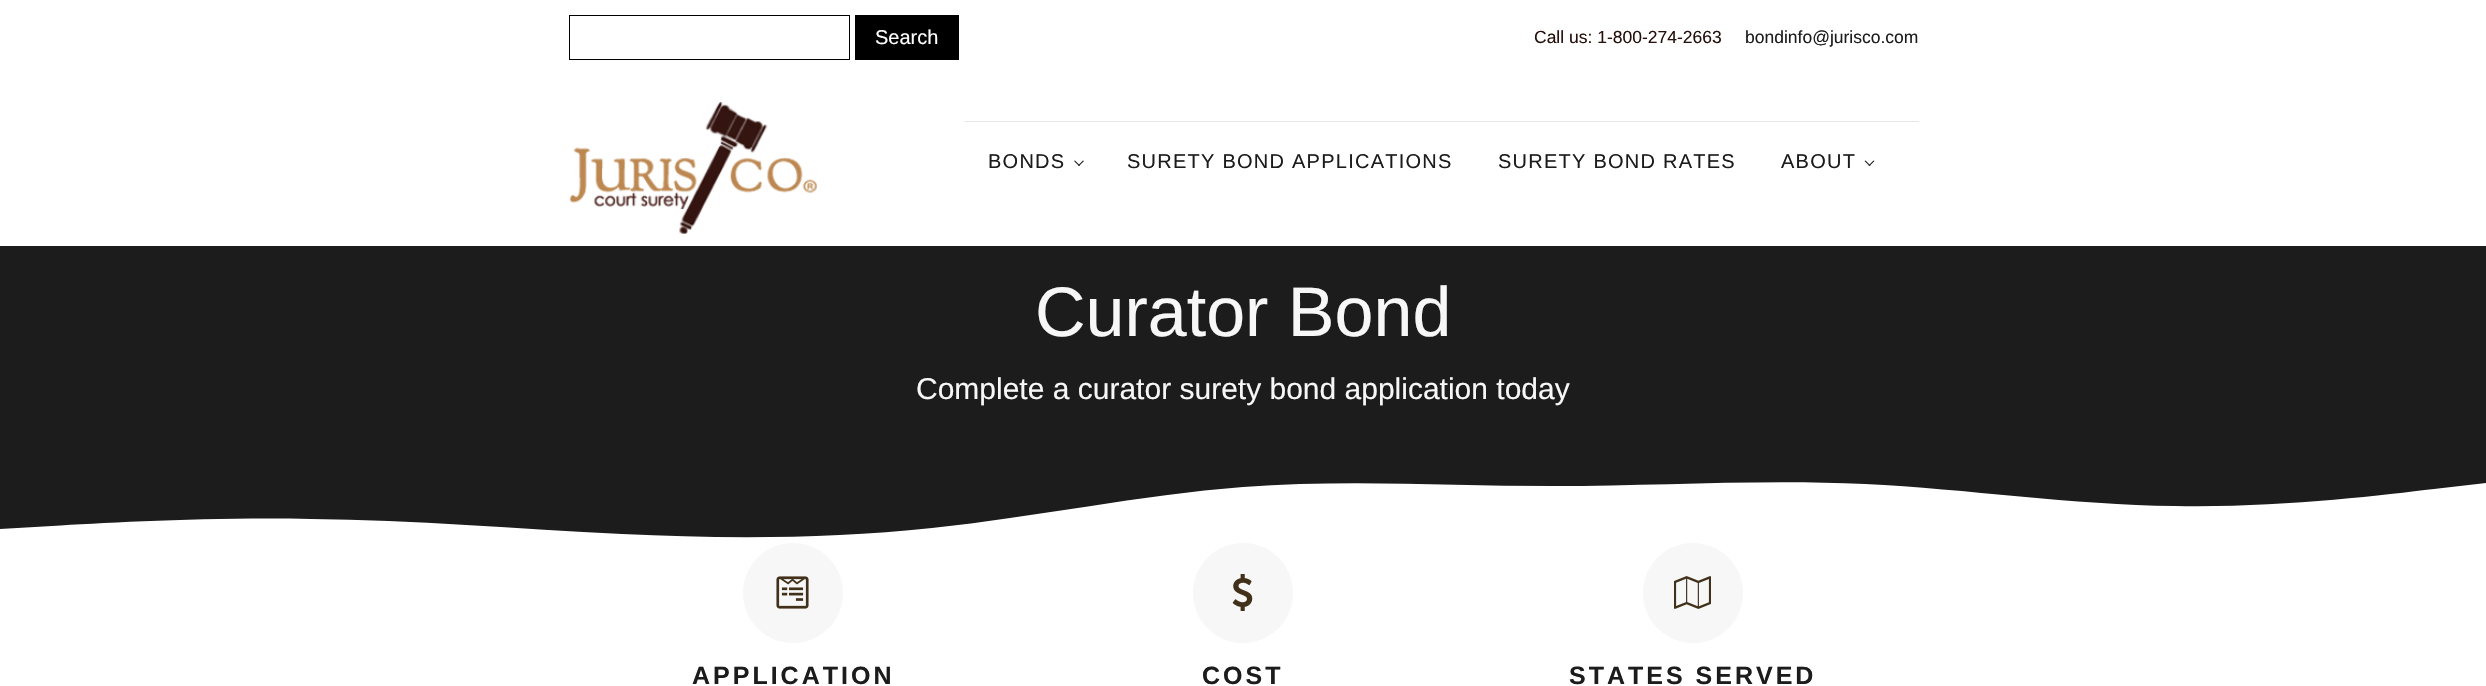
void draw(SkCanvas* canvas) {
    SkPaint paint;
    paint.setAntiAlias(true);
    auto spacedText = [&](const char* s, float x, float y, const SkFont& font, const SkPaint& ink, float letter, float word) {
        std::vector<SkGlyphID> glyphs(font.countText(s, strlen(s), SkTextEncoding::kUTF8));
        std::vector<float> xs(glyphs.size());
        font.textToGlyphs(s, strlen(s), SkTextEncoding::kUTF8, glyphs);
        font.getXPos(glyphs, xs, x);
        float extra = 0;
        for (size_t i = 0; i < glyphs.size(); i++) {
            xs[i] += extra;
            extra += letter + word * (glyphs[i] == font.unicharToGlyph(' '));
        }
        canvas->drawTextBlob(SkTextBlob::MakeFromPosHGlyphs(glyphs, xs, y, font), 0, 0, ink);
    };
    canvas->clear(0xFFFFFFFF);
    paint.setStyle(SkPaint::kStroke_Style);
    paint.setStrokeWidth(1);
    paint.setColor(0xFF000000);
    canvas->drawRect(SkRect::MakeXYWH(569.5f, 15.5f, 280, 44), paint);
    paint.setStyle(SkPaint::kFill_Style);
    canvas->drawRect(SkRect::MakeXYWH(855, 15, 104, 45), paint);
    SkFont font1(fontMgr->matchFamilyStyle("Liberation Sans", SkFontStyle::Normal()), 20);
    font1.setSubpixel(true);
    paint.setColor(0xFFFFFFFF);
    canvas->drawString("Search", 875, 44, font1, paint);
    SkFont font2(fontMgr->matchFamilyStyle("Liberation Sans", SkFontStyle::Normal()), 17.5f);
    font2.setSubpixel(true);
    paint.setColor(0xFF26100B);
    canvas->drawString("Call us: 1-800-274-2663", 1534, 43, font2, paint);
    paint.setColor(0xFF1C1C1C);
    canvas->drawString("bondinfo@jurisco.com", 1745, 43, font2, paint);
    canvas->drawImageRect(SkImages::DeferredFromEncodedData(SkData::MakeFromFileName("img1.png")), SkRect::MakeXYWH(569, 102, 248, 132), SkSamplingOptions());
    paint.setColor(0xFFE6E6E6);
    canvas->drawRect(SkRect::MakeXYWH(965, 121, 954, 1), paint);
    paint.setColor(0xFF1C1C1C);
    spacedText("BONDS", 988, 168, font1, paint, 1.25f, 0);
    canvas->drawPath(SkPathBuilder().moveTo(1084, 161).lineTo(1079, 166).lineTo(1078, 165.5f).lineTo(1083, 160.5f).close().detach(), paint);
    canvas->drawPath(SkPathBuilder().moveTo(1080, 165.5f).lineTo(1079, 166).lineTo(1074, 161).lineTo(1075, 160.5f).close().detach(), paint);
    spacedText("SURETY BOND APPLICATIONS", 1127, 168, font1, paint, 1.25f, 0);
    spacedText("SURETY BOND RATES", 1498, 168, font1, paint, 1.25f, 0);
    spacedText("ABOUT", 1781, 168, font1, paint, 1.25f, 0);
    canvas->drawPath(SkPathBuilder().moveTo(1874.5f, 161).lineTo(1869.5f, 166).lineTo(1868.5f, 165.5f).lineTo(1873.5f, 160.5f).close().detach(), paint);
    canvas->drawPath(SkPathBuilder().moveTo(1870.5f, 165.5f).lineTo(1869.5f, 166).lineTo(1864.5f, 161).lineTo(1865.5f, 160.5f).close().detach(), paint);
    canvas->drawRect(SkRect::MakeXYWH(0, 246, 2486, 219), paint);
    SkFont font3(fontMgr->matchFamilyStyle("Liberation Sans", SkFontStyle::Normal()), 70);
    font3.setSubpixel(true);
    paint.setColor(0xFFF7F7F7);
    canvas->drawString("Curator Bond", 1035, 336, font3, paint);
    SkFont font4(fontMgr->matchFamilyStyle("Liberation Sans", SkFontStyle::Normal()), 30);
    font4.setSubpixel(true);
    canvas->drawString("Complete a curator surety bond application today", 916, 399, font4, paint);
    canvas->save();
    canvas->clipRect(SkRect::MakeXYWH(0, 465, 2486, 94));
    paint.setColor(0xFF1C1C1C);
    canvas->drawPath(SkPathBuilder().moveTo(0, 529).lineTo(52, 526).cubicTo(104, 523, 207, 517, 311, 519).cubicTo(414, 520, 518, 529, 622, 534).cubicTo(725, 539, 829, 539, 932, 528).cubicTo(1036, 517, 1140, 495, 1243, 487).cubicTo(1347, 479, 1450, 486, 1554, 486).cubicTo(1658, 486, 1761, 479, 1865, 484).cubicTo(1968, 489, 2072, 505, 2175, 506).cubicTo(2279, 508, 2383, 495, 2434, 489).lineTo(2486, 483).lineTo(2486, 464).lineTo(0, 464).close().detach(), paint);
    canvas->restore();
    paint.setColor(0xFFF7F7F7);
    canvas->drawCircle(793, 593, 50, paint);
    canvas->drawImageRect(SkImages::DeferredFromEncodedData(SkData::MakeFromFileName("img2.png")), SkRect::MakeXYWH(776, 576, 33, 33), SkSamplingOptions());
    SkFont font5(fontMgr->matchFamilyStyle("Liberation Sans", SkFontStyle::Bold()), 25);
    font5.setSubpixel(true);
    paint.setColor(0xFF1C1C1C);
    spacedText("APPLICATION", 692, 684, font5, paint, 3, 0);
    paint.setColor(0xFFF7F7F7);
    canvas->drawCircle(1243, 593, 50, paint);
    canvas->drawImageRect(SkImages::DeferredFromEncodedData(SkData::MakeFromFileName("img3.png")), SkRect::MakeXYWH(1232, 574, 21, 37), SkSamplingOptions());
    paint.setColor(0xFF1C1C1C);
    spacedText("COST", 1202, 684, font5, paint, 3, 0);
    paint.setColor(0xFFF7F7F7);
    canvas->drawCircle(1693, 593, 50, paint);
    canvas->drawImageRect(SkImages::DeferredFromEncodedData(SkData::MakeFromFileName("img4.png")), SkRect::MakeXYWH(1674, 576, 37, 33), SkSamplingOptions());
    paint.setColor(0xFF1C1C1C);
    spacedText("STATES SERVED", 1569, 684, font5, paint, 3, 0);
}
